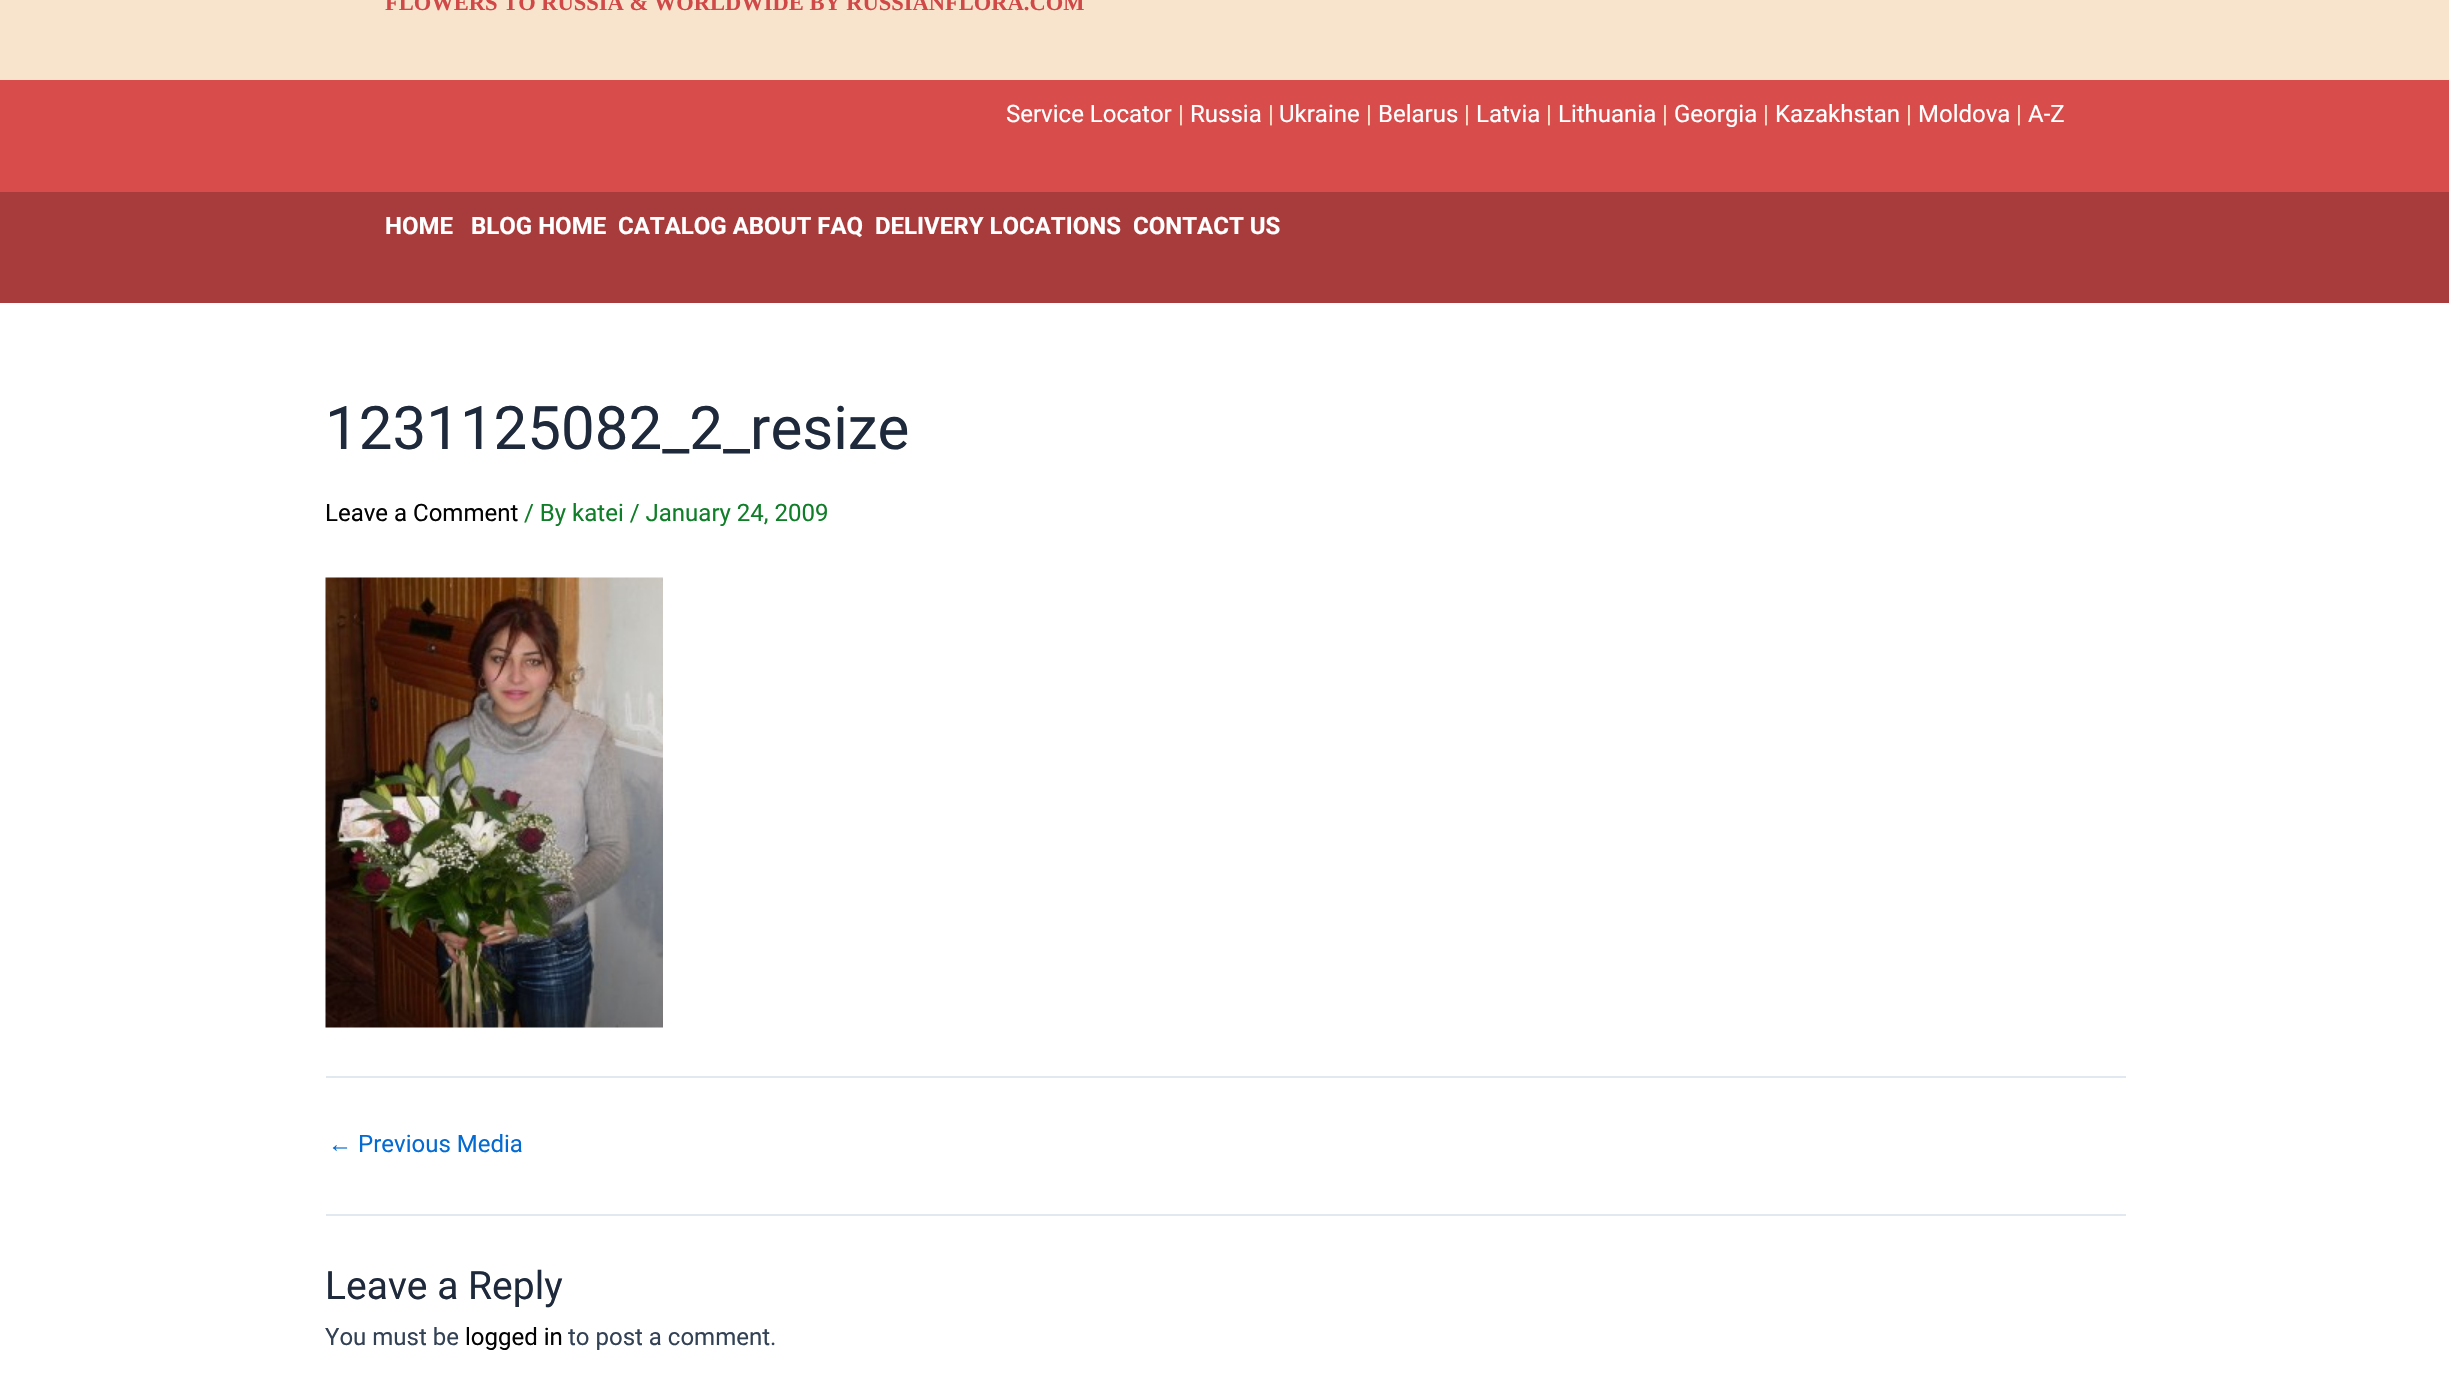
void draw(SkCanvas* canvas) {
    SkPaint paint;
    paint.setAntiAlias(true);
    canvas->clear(0xFFFFFFFF);
    paint.setColor(0xFFF8E4CC);
    canvas->drawRect(SkRect::MakeXYWH(0, 0, 2449, 80), paint);
    SkFont font1(fontMgr->matchFamilyStyle("Liberation Serif", SkFontStyle::Bold()), 22.5f);
    font1.setSubpixel(true);
    paint.setColor(0xFFD14848);
    canvas->drawString("FLOWERS TO RUSSIA & WORLDWIDE BY RUSSIANFLORA.COM", 385, 10, font1, paint);
    paint.setColor(0xFFD84C4C);
    canvas->drawRect(SkRect::MakeXYWH(0, 80, 2449, 112), paint);
    SkFont font2(fontMgr->matchFamilyStyle("Roboto", SkFontStyle::Normal()), 24);
    font2.setSubpixel(true);
    paint.setColor(0xFFFFFFFF);
    canvas->drawString("Service Locator", 1006, 122, font2, paint);
    paint.setColor(0xFFF8E4CC);
    canvas->drawString("|", 1178, 122, font2, paint);
    paint.setColor(0xFFFFFFFF);
    canvas->drawString("Russia", 1190, 122, font2, paint);
    paint.setColor(0xFFF8E4CC);
    canvas->drawString("|", 1268, 122, font2, paint);
    paint.setColor(0xFFFFFFFF);
    canvas->drawString("Ukraine", 1279, 122, font2, paint);
    paint.setColor(0xFFF8E4CC);
    canvas->drawString("|", 1366, 122, font2, paint);
    paint.setColor(0xFFFFFFFF);
    canvas->drawString("Belarus", 1378, 122, font2, paint);
    paint.setColor(0xFFF8E4CC);
    canvas->drawString("|", 1464, 122, font2, paint);
    paint.setColor(0xFFFFFFFF);
    canvas->drawString("Latvia", 1476, 122, font2, paint);
    paint.setColor(0xFFF8E4CC);
    canvas->drawString("|", 1546, 122, font2, paint);
    paint.setColor(0xFFFFFFFF);
    canvas->drawString("Lithuania", 1558, 122, font2, paint);
    paint.setColor(0xFFF8E4CC);
    canvas->drawString("|", 1662, 122, font2, paint);
    paint.setColor(0xFFFFFFFF);
    canvas->drawString("Georgia", 1674, 122, font2, paint);
    paint.setColor(0xFFF8E4CC);
    canvas->drawString("|", 1763, 122, font2, paint);
    paint.setColor(0xFFFFFFFF);
    canvas->drawString("Kazakhstan", 1775, 122, font2, paint);
    paint.setColor(0xFFF8E4CC);
    canvas->drawString("|", 1906, 122, font2, paint);
    paint.setColor(0xFFFFFFFF);
    canvas->drawString("Moldova", 1918, 122, font2, paint);
    paint.setColor(0xFFF8E4CC);
    canvas->drawString("|", 2016, 122, font2, paint);
    paint.setColor(0xFFFFFFFF);
    canvas->drawString("A-Z", 2028, 122, font2, paint);
    paint.setColor(0xFFA83C3C);
    canvas->drawRect(SkRect::MakeXYWH(0, 192, 2449, 111), paint);
    SkFont font3(fontMgr->matchFamilyStyle("Roboto", SkFontStyle::Bold()), 24);
    font3.setSubpixel(true);
    paint.setColor(0xFFFFFFFF);
    canvas->drawString("HOME", 385, 234, font3, paint);
    canvas->drawString("BLOG HOME", 471, 234, font3, paint);
    canvas->drawString("CATALOG ABOUT FAQ", 618, 234, font3, paint);
    canvas->drawString("DELIVERY LOCATIONS", 875, 234, font3, paint);
    canvas->drawString("CONTACT US", 1133, 234, font3, paint);
    SkFont font4(fontMgr->matchFamilyStyle("Roboto", SkFontStyle::Normal()), 60);
    font4.setSubpixel(true);
    paint.setColor(0xFF1E293B);
    canvas->drawString("1231125082_2_resize", 325, 449, font4, paint);
    paint.setColor(0xFF030303);
    canvas->drawString("Leave a Comment", 325, 521, font2, paint);
    paint.setColor(0xFF107E28);
    canvas->drawString("/ By katei / January 24, 2009", 524, 521, font2, paint);
    canvas->drawImageRect(SkImages::DeferredFromEncodedData(SkData::MakeFromFileName("img1.png")), SkRect::MakeXYWH(325, 577, 338, 451), SkSamplingOptions());
    paint.setColor(0xFFE2E8F0);
    canvas->drawRect(SkRect::MakeXYWH(326, 1076, 1800, 2), paint);
    SkFont font5(fontMgr->matchFamilyStyle("Liberation Sans", SkFontStyle::Normal()), 24);
    font5.setSubpixel(true);
    paint.setColor(0xFF046BD2);
    canvas->drawString("←", 328, 1152, font5, paint);
    canvas->drawString("Previous Media", 358, 1152, font2, paint);
    paint.setColor(0xFFE2E8F0);
    canvas->drawRect(SkRect::MakeXYWH(326, 1214, 1800, 2), paint);
    SkFont font6(fontMgr->matchFamilyStyle("Roboto", SkFontStyle::Normal()), 39);
    font6.setSubpixel(true);
    paint.setColor(0xFF1E293B);
    canvas->drawString("Leave a Reply", 325, 1299, font6, paint);
    paint.setColor(0xFF334155);
    canvas->drawString("You must be", 325, 1345, font2, paint);
    paint.setColor(0xFF030303);
    canvas->drawString("logged in", 465, 1345, font2, paint);
    paint.setColor(0xFF334155);
    canvas->drawString("to post a comment.", 568, 1345, font2, paint);
}
